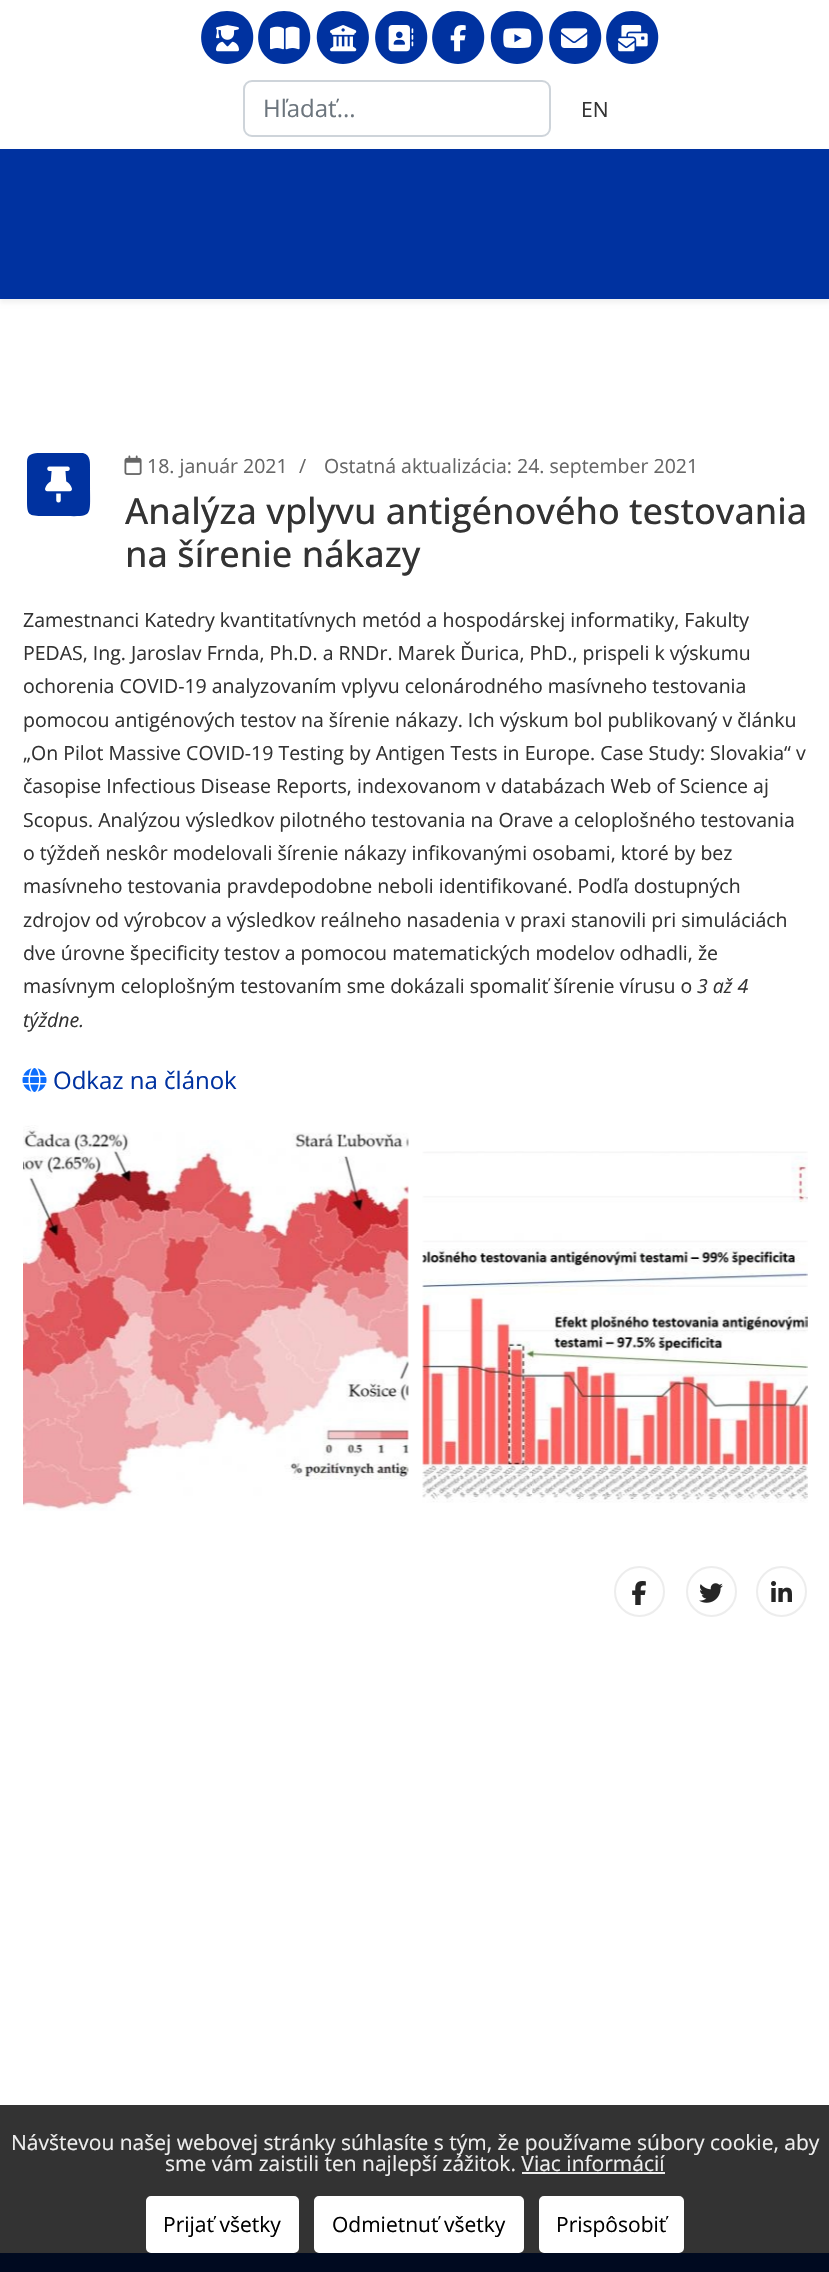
void draw(SkCanvas* canvas) {
    SkPaint paint;
    paint.setAntiAlias(true);
    canvas->clear(0xFFFFFFFF);
    paint.setColor(0xFF333333);
    canvas->drawRect(SkRect::MakeXYWH(0, 2105, 829, 148), paint);
    paint.setColor(0xFF0032A0);
    canvas->drawPath(SkPathBuilder().moveTo(227, 64).cubicTo(262, 63, 262, 11, 227, 11).cubicTo(193, 11, 192, 63, 227, 64).close().detach(), paint);
    canvas->drawImageRect(SkImages::DeferredFromEncodedData(SkData::MakeFromFileName("img1.png")), SkRect::MakeXYWH(216, 25, 23, 27), SkSamplingOptions());
    canvas->drawPath(SkPathBuilder().moveTo(284, 64).cubicTo(319, 63, 319, 11, 284, 11).cubicTo(250, 11, 249, 63, 284, 64).close().detach(), paint);
    canvas->drawImageRect(SkImages::DeferredFromEncodedData(SkData::MakeFromFileName("img2.png")), SkRect::MakeXYWH(270, 26, 30, 24), SkSamplingOptions());
    canvas->drawPath(SkPathBuilder().moveTo(343, 64).cubicTo(378, 63, 377, 11, 343, 11).cubicTo(308, 11, 308, 63, 343, 64).close().detach(), paint);
    canvas->drawImageRect(SkImages::DeferredFromEncodedData(SkData::MakeFromFileName("img3.png")), SkRect::MakeXYWH(330, 25, 27, 27), SkSamplingOptions());
    canvas->drawPath(SkPathBuilder().moveTo(401, 64).cubicTo(436, 63, 436, 11, 401, 11).cubicTo(367, 11, 366, 63, 401, 64).close().detach(), paint);
    canvas->drawImageRect(SkImages::DeferredFromEncodedData(SkData::MakeFromFileName("img4.png")), SkRect::MakeXYWH(388, 25, 26, 27), SkSamplingOptions());
    canvas->drawPath(SkPathBuilder().moveTo(458, 64).cubicTo(493, 63, 493, 11, 458, 11).cubicTo(424, 11, 423, 63, 458, 64).close().detach(), paint);
    canvas->drawImageRect(SkImages::DeferredFromEncodedData(SkData::MakeFromFileName("img5.png")), SkRect::MakeXYWH(450, 25, 16, 27), SkSamplingOptions());
    canvas->drawPath(SkPathBuilder().moveTo(517, 64).cubicTo(552, 63, 551, 11, 517, 11).cubicTo(482, 11, 482, 63, 517, 64).close().detach(), paint);
    canvas->drawImageRect(SkImages::DeferredFromEncodedData(SkData::MakeFromFileName("img6.png")), SkRect::MakeXYWH(503, 28, 29, 20), SkSamplingOptions());
    canvas->drawPath(SkPathBuilder().moveTo(575, 64).cubicTo(610, 63, 610, 11, 575, 11).cubicTo(541, 11, 540, 63, 575, 64).close().detach(), paint);
    canvas->drawImageRect(SkImages::DeferredFromEncodedData(SkData::MakeFromFileName("img7.png")), SkRect::MakeXYWH(561, 28, 27, 20), SkSamplingOptions());
    canvas->drawPath(SkPathBuilder().moveTo(632, 64).cubicTo(667, 63, 667, 11, 632, 11).cubicTo(598, 11, 597, 63, 632, 64).close().detach(), paint);
    canvas->drawImageRect(SkImages::DeferredFromEncodedData(SkData::MakeFromFileName("img8.png")), SkRect::MakeXYWH(618, 25, 30, 27), SkSamplingOptions());
    paint.setStyle(SkPaint::kStroke_Style);
    paint.setStrokeWidth(2);
    paint.setColor(0xFFCED4DA);
    canvas->drawRoundRect(SkRect::MakeXYWH(244, 81, 306, 55), 8, 8, paint);
    SkFont font1(fontMgr->matchFamilyStyle("Open Sans", SkFontStyle::Normal()), 24);
    font1.setSubpixel(true);
    paint.setStyle(SkPaint::kFill_Style);
    paint.setColor(0xFF6C757D);
    canvas->drawString("Hľadať...", 263, 117, font1, paint);
    SkFont font2(fontMgr->matchFamilyStyle("Open Sans", SkFontStyle::Normal()), 21);
    font2.setSubpixel(true);
    paint.setColor(0xFF333333);
    canvas->drawString("EN", 581, 117, font2, paint);
    paint.setColor(0x0D000000);
    paint.setMaskFilter(SkMaskFilter::MakeBlur(kNormal_SkBlurStyle, 2));
    canvas->drawRect(SkRect::MakeXYWH(0, 153, 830, 150), paint);
    paint.setMaskFilter(nullptr);
    paint.setColor(0xFF0032A0);
    canvas->drawRect(SkRect::MakeXYWH(0, 149, 829, 150), paint);
    canvas->drawPath(SkPathBuilder().moveTo(27, 462).cubicTo(27, 452, 36, 453, 44, 453).lineTo(83, 453).cubicTo(91, 455, 90, 463, 90, 470).lineTo(90, 484).cubicTo(90, 520, 94, 516, 58, 516).lineTo(44, 516).cubicTo(28, 516, 27, 515, 27, 500).close().detach(), paint);
    canvas->drawImageRect(SkImages::DeferredFromEncodedData(SkData::MakeFromFileName("img9.png")), SkRect::MakeXYWH(45, 466, 27, 37), SkSamplingOptions());
    canvas->drawImageRect(SkImages::DeferredFromEncodedData(SkData::MakeFromFileName("img10.png")), SkRect::MakeXYWH(124, 455, 18, 20), SkSamplingOptions());
    SkFont font3(fontMgr->matchFamilyStyle("Open Sans", SkFontStyle::Normal()), 19.5f);
    font3.setSubpixel(true);
    paint.setColor(0xFF666666);
    canvas->drawString("18. január 2021", 147, 473, font3, paint);
    canvas->drawString("/", 299, 473, font3, paint);
    canvas->drawString("Ostatná aktualizácia: 24. september 2021", 324, 473, font3, paint);
    SkFont font4(fontMgr->matchFamilyStyle("Open Sans", SkFontStyle(500, SkFontStyle::kNormal_Width, SkFontStyle::kUpright_Slant)), 36);
    font4.setSubpixel(true);
    paint.setColor(0xFF333333);
    canvas->drawString("Analýza vplyvu antigénového testovania", 125, 524, font4, paint);
    canvas->drawString("na šírenie nákazy", 125, 567, font4, paint);
    canvas->drawString("Zamestnanci Katedry kvantitatívnych metód a hospodárskej informatiky, Fakulty", 23, 627, font3, paint);
    canvas->drawString("PEDAS, Ing. Jaroslav Frnda, Ph.D. a RNDr. Marek Ďurica, PhD., prispeli k výskumu", 23, 660, font3, paint);
    canvas->drawString("ochorenia COVID-19 analyzovaním vplyvu celonárodného masívneho testovania", 23, 693, font3, paint);
    canvas->drawString("pomocou antigénových testov na šírenie nákazy. Ich výskum bol publikovaný v článku", 23, 727, font3, paint);
    canvas->drawString("„On Pilot Massive COVID-19 Testing by Antigen Tests in Europe. Case Study: Slovakia“ v", 23, 760, font3, paint);
    canvas->drawString("časopise Infectious Disease Reports, indexovanom v databázach Web of Science aj", 23, 793, font3, paint);
    canvas->drawString("Scopus. Analýzou výsledkov pilotného testovania na Orave a celoplošného testovania", 23, 827, font3, paint);
    canvas->drawString("o týždeň neskôr modelovali šírenie nákazy infikovanými osobami, ktoré by bez", 23, 860, font3, paint);
    canvas->drawString("masívneho testovania pravdepodobne neboli identifikované. Podľa dostupných", 23, 893, font3, paint);
    canvas->drawString("zdrojov od výrobcov a výsledkov reálneho nasadenia v praxi stanovili pri simuláciách", 23, 927, font3, paint);
    canvas->drawString("dve úrovne špecificity testov a pomocou matematických modelov odhadli, že", 23, 960, font3, paint);
    canvas->drawString("masívnym celoplošným testovaním sme dokázali spomaliť šírenie vírusu o", 23, 993, font3, paint);
    SkFont font5(fontMgr->matchFamilyStyle("Open Sans", SkFontStyle::Italic()), 19.5f);
    font5.setSubpixel(true);
    canvas->drawString("3 až 4", 697, 993, font5, paint);
    canvas->drawString("týždne.", 23, 1027, font5, paint);
    canvas->drawImageRect(SkImages::DeferredFromEncodedData(SkData::MakeFromFileName("img11.png")), SkRect::MakeXYWH(22, 1068, 25, 24), SkSamplingOptions());
    paint.setColor(0xFF0032A0);
    canvas->drawString("Odkaz na článok", 53, 1089, font1, paint);
    canvas->drawImageRect(SkImages::DeferredFromEncodedData(SkData::MakeFromFileName("img12.png")), SkRect::MakeXYWH(23, 1125, 386, 386), SkSamplingOptions());
    canvas->drawImageRect(SkImages::DeferredFromEncodedData(SkData::MakeFromFileName("img13.png")), SkRect::MakeXYWH(422, 1151, 386, 352), SkSamplingOptions());
    paint.setStyle(SkPaint::kStroke_Style);
    paint.setColor(0xFFEDEDED);
    canvas->drawCircle(639.5f, 1591.5f, 24.5f, paint);
    canvas->drawImageRect(SkImages::DeferredFromEncodedData(SkData::MakeFromFileName("img14.png")), SkRect::MakeXYWH(632, 1581, 14, 24), SkSamplingOptions());
    canvas->drawCircle(711.5f, 1591.5f, 24.5f, paint);
    canvas->drawImageRect(SkImages::DeferredFromEncodedData(SkData::MakeFromFileName("img15.png")), SkRect::MakeXYWH(699, 1583, 24, 20), SkSamplingOptions());
    canvas->drawCircle(781.5f, 1591.5f, 24.5f, paint);
    canvas->drawImageRect(SkImages::DeferredFromEncodedData(SkData::MakeFromFileName("img16.png")), SkRect::MakeXYWH(771, 1581, 21, 21), SkSamplingOptions());
    paint.setStyle(SkPaint::kFill_Style);
    paint.setColor(0xFF000A20);
    canvas->drawRect(SkRect::MakeXYWH(0, 2253, 829, 19), paint);
    paint.setColor(0xFFEEEEEE);
    canvas->drawString("Návštevou našej webovej stránky súhlasíte s tým, že používame súbory cookie, aby", 11, 2150, font2, paint);
    canvas->drawString("sme vám zaistili ten najlepší zážitok. Viac informácií", 165, 2171, font2, paint);
    canvas->drawRect(SkRect::MakeXYWH(522, 2172, 143, 2), paint);
    paint.setColor(0xFFFFFFFF);
    canvas->drawRoundRect(SkRect::MakeXYWH(147.5f, 2197.5f, 150, 54), 3.5f, 3.5f, paint);
    paint.setStyle(SkPaint::kStroke_Style);
    paint.setStrokeWidth(3);
    canvas->drawRoundRect(SkRect::MakeXYWH(147.5f, 2197.5f, 150, 54), 3.5f, 3.5f, paint);
    paint.setStyle(SkPaint::kFill_Style);
    paint.setColor(0xFF000000);
    canvas->drawString("Prijať všetky", 163, 2232, font2, paint);
    paint.setColor(0xFFFFFFFF);
    canvas->drawRoundRect(SkRect::MakeXYWH(315.5f, 2197.5f, 207, 54), 3.5f, 3.5f, paint);
    paint.setStyle(SkPaint::kStroke_Style);
    canvas->drawRoundRect(SkRect::MakeXYWH(315.5f, 2197.5f, 207, 54), 3.5f, 3.5f, paint);
    paint.setStyle(SkPaint::kFill_Style);
    paint.setColor(0xFF000000);
    canvas->drawString("Odmietnuť všetky", 332, 2232, font2, paint);
    paint.setColor(0xFFFFFFFF);
    canvas->drawRoundRect(SkRect::MakeXYWH(540.5f, 2197.5f, 142, 54), 3.5f, 3.5f, paint);
    paint.setStyle(SkPaint::kStroke_Style);
    canvas->drawRoundRect(SkRect::MakeXYWH(540.5f, 2197.5f, 142, 54), 3.5f, 3.5f, paint);
    paint.setStyle(SkPaint::kFill_Style);
    paint.setColor(0xFF000000);
    canvas->drawString("Prispôsobiť", 556, 2232, font2, paint);
}
